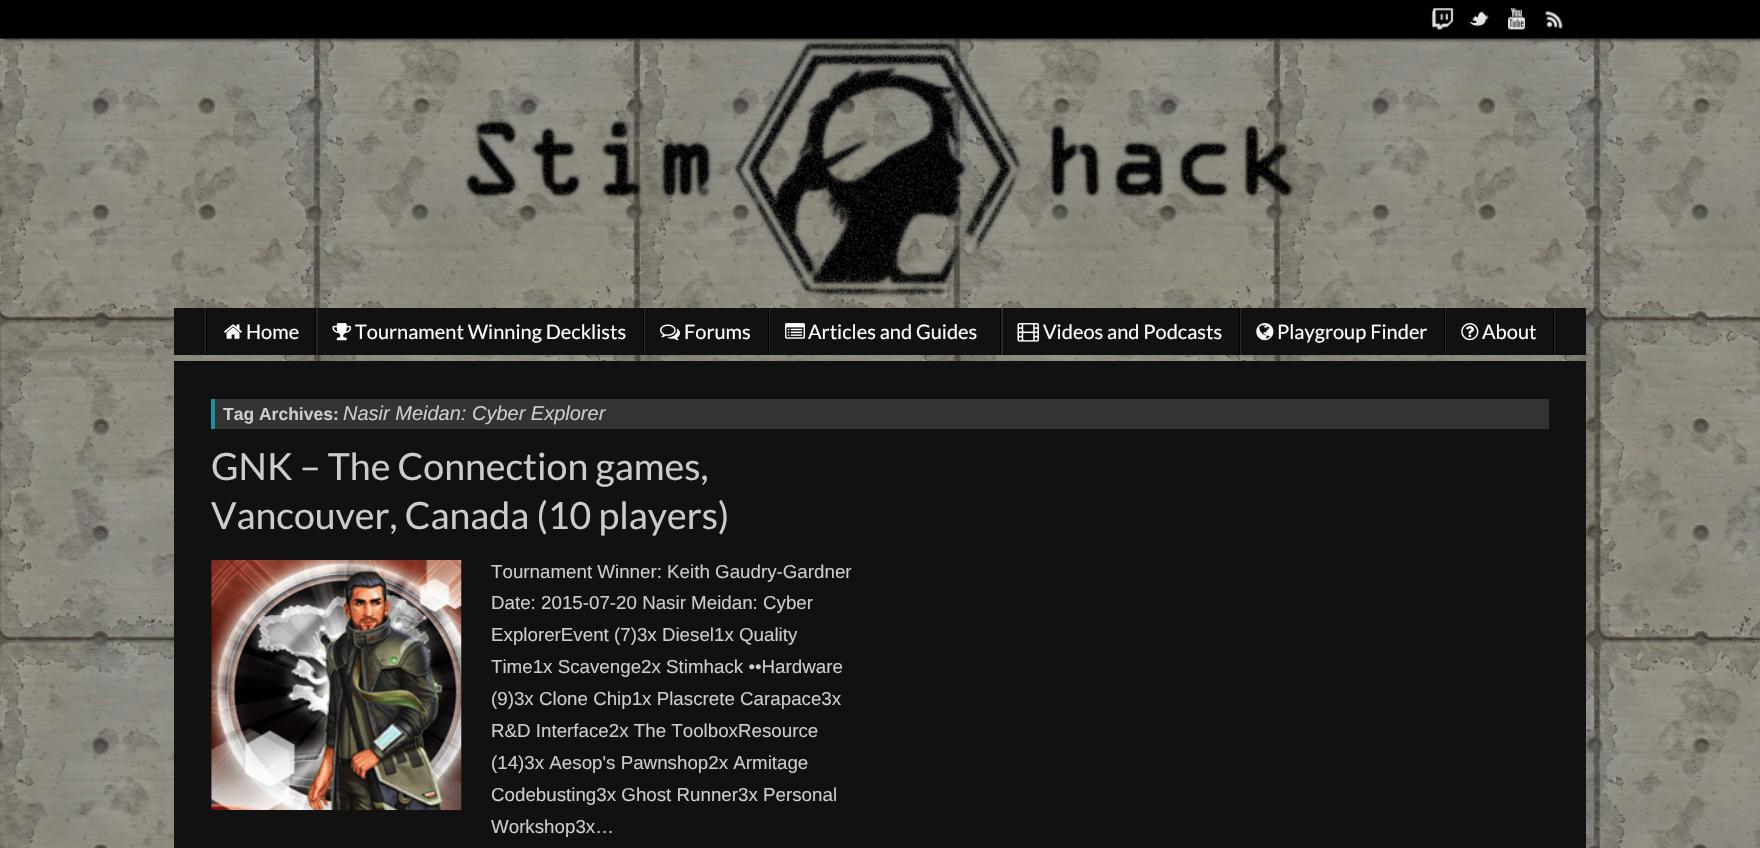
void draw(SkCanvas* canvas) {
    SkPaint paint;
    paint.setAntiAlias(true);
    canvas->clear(0xFFFFFFFF);
    canvas->drawImageRect(SkImages::DeferredFromEncodedData(SkData::MakeFromFileName("img1.png")), SkRect::MakeXYWH(0, 39, 1760, 809), SkSamplingOptions());
    paint.setColor(0xFF000000);
    paint.setMaskFilter(SkMaskFilter::MakeBlur(kNormal_SkBlurStyle, 2));
    canvas->drawRect(SkRect::MakeXYWH(4, 0, 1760, 39), paint);
    paint.setMaskFilter(nullptr);
    canvas->drawRect(SkRect::MakeXYWH(0, 0, 1760, 38), paint);
    paint.setColor(0xFF282828);
    canvas->drawRect(SkRect::MakeXYWH(0, 38, 1760, 1), paint);
    canvas->drawImageRect(SkImages::DeferredFromEncodedData(SkData::MakeFromFileName("img2.png")), SkRect::MakeXYWH(1431, 8, 23, 22), SkSamplingOptions());
    canvas->drawImageRect(SkImages::DeferredFromEncodedData(SkData::MakeFromFileName("img3.png")), SkRect::MakeXYWH(1469, 11, 20, 16), SkSamplingOptions());
    canvas->drawImageRect(SkImages::DeferredFromEncodedData(SkData::MakeFromFileName("img4.png")), SkRect::MakeXYWH(1508, 8, 17, 22), SkSamplingOptions());
    canvas->drawImageRect(SkImages::DeferredFromEncodedData(SkData::MakeFromFileName("img5.png")), SkRect::MakeXYWH(1545, 11, 18, 18), SkSamplingOptions());
    canvas->drawImageRect(SkImages::DeferredFromEncodedData(SkData::MakeFromFileName("img6.png")), SkRect::MakeXYWH(465, 41, 829, 257), SkSamplingOptions());
    paint.setColor(0xFF111111);
    canvas->drawRect(SkRect::MakeXYWH(174, 308, 1412, 47), paint);
    paint.setColor(0xFF292929);
    canvas->drawRect(SkRect::MakeXYWH(205, 308, 1, 47), paint);
    paint.setColor(0xFF000000);
    canvas->drawRect(SkRect::MakeXYWH(206, 308, 1, 47), paint);
    paint.setColor(0xFF292929);
    canvas->drawRect(SkRect::MakeXYWH(316, 308, 2, 47), paint);
    paint.setColor(0xFF000000);
    canvas->drawRect(SkRect::MakeXYWH(315, 308, 1, 47), paint);
    canvas->drawImageRect(SkImages::DeferredFromEncodedData(SkData::MakeFromFileName("img7.png")), SkRect::MakeXYWH(224, 324, 18, 15), SkSamplingOptions());
    SkFont font1(fontMgr->matchFamilyStyle("Lato", SkFontStyle::Normal()), 20);
    font1.setSubpixel(true);
    paint.setColor(0xFFFFFFFF);
    canvas->drawString("Home", 246, 339, font1, paint);
    paint.setColor(0xFF292929);
    canvas->drawRect(SkRect::MakeXYWH(644, 308, 1, 47), paint);
    paint.setColor(0xFF000000);
    canvas->drawRect(SkRect::MakeXYWH(643, 308, 1, 47), paint);
    canvas->drawImageRect(SkImages::DeferredFromEncodedData(SkData::MakeFromFileName("img8.png")), SkRect::MakeXYWH(332, 323, 20, 18), SkSamplingOptions());
    paint.setColor(0xFFFFFFFF);
    canvas->drawString("Tournament Winning Decklists", 355, 339, font1, paint);
    paint.setColor(0xFF292929);
    canvas->drawRect(SkRect::MakeXYWH(769, 308, 1, 47), paint);
    paint.setColor(0xFF000000);
    canvas->drawRect(SkRect::MakeXYWH(768, 308, 1, 47), paint);
    canvas->drawImageRect(SkImages::DeferredFromEncodedData(SkData::MakeFromFileName("img9.png")), SkRect::MakeXYWH(660, 324, 20, 17), SkSamplingOptions());
    paint.setColor(0xFFFFFFFF);
    canvas->drawString("Forums", 684, 339, font1, paint);
    paint.setColor(0xFF292929);
    canvas->drawRect(SkRect::MakeXYWH(1001, 308, 2, 47), paint);
    paint.setColor(0xFF000000);
    canvas->drawRect(SkRect::MakeXYWH(1000, 308, 1, 47), paint);
    canvas->drawImageRect(SkImages::DeferredFromEncodedData(SkData::MakeFromFileName("img10.png")), SkRect::MakeXYWH(785, 323, 20, 16), SkSamplingOptions());
    paint.setColor(0xFFFFFFFF);
    canvas->drawString("Articles and Guides", 808, 339, font1, paint);
    paint.setColor(0xFF292929);
    canvas->drawRect(SkRect::MakeXYWH(1240, 308, 1, 47), paint);
    paint.setColor(0xFF000000);
    canvas->drawRect(SkRect::MakeXYWH(1239, 308, 1, 47), paint);
    canvas->drawImageRect(SkImages::DeferredFromEncodedData(SkData::MakeFromFileName("img11.png")), SkRect::MakeXYWH(1017, 323, 22, 19), SkSamplingOptions());
    paint.setColor(0xFFFFFFFF);
    canvas->drawString("Videos and Podcasts", 1043, 339, font1, paint);
    paint.setColor(0xFF292929);
    canvas->drawRect(SkRect::MakeXYWH(1445, 308, 1, 47), paint);
    paint.setColor(0xFF000000);
    canvas->drawRect(SkRect::MakeXYWH(1444, 308, 1, 47), paint);
    canvas->drawImageRect(SkImages::DeferredFromEncodedData(SkData::MakeFromFileName("img12.png")), SkRect::MakeXYWH(1256, 323, 18, 18), SkSamplingOptions());
    paint.setColor(0xFFFFFFFF);
    canvas->drawString("Playgroup Finder", 1277, 339, font1, paint);
    paint.setColor(0xFF292929);
    canvas->drawRect(SkRect::MakeXYWH(1554, 308, 1, 47), paint);
    paint.setColor(0xFF000000);
    canvas->drawRect(SkRect::MakeXYWH(1553, 308, 1, 47), paint);
    canvas->drawImageRect(SkImages::DeferredFromEncodedData(SkData::MakeFromFileName("img13.png")), SkRect::MakeXYWH(1461, 323, 18, 18), SkSamplingOptions());
    paint.setColor(0xFFFFFFFF);
    canvas->drawString("About", 1482, 339, font1, paint);
    paint.setColor(0xFF111111);
    canvas->drawRect(SkRect::MakeXYWH(174, 361, 1412, 487), paint);
    paint.setColor(0xFF333333);
    canvas->drawRect(SkRect::MakeXYWH(215, 399, 1334, 30), paint);
    paint.setColor(0xFF1693A5);
    canvas->drawRect(SkRect::MakeXYWH(211, 399, 4, 30), paint);
    SkFont font2(fontMgr->matchFamilyStyle("Liberation Sans", SkFontStyle::Bold()), 17.5f);
    font2.setSubpixel(true);
    paint.setColor(0xFFCCCCCC);
    canvas->drawString("Tag Archives:", 223, 420, font2, paint);
    SkFont font3(fontMgr->matchFamilyStyle("Liberation Sans", SkFontStyle::Italic()), 20);
    font3.setSubpixel(true);
    canvas->drawString("Nasir Meidan: Cyber Explorer", 343, 420, font3, paint);
    SkFont font4(fontMgr->matchFamilyStyle("Lato", SkFontStyle::Normal()), 37.5f);
    font4.setSubpixel(true);
    canvas->drawString("GNK – The Connection games,", 211, 480, font4, paint);
    canvas->drawString("Vancouver, Canada (10 players)", 211, 529, font4, paint);
    canvas->drawImageRect(SkImages::DeferredFromEncodedData(SkData::MakeFromFileName("img14.png")), SkRect::MakeXYWH(211, 560, 251, 250), SkSamplingOptions());
    SkFont font5(fontMgr->matchFamilyStyle("Liberation Sans", SkFontStyle::Normal()), 18.75f);
    font5.setSubpixel(true);
    canvas->drawString("Tournament Winner: Keith Gaudry-Gardner", 491, 578, font5, paint);
    canvas->drawString("Date: 2015-07-20 Nasir Meidan: Cyber", 491, 609, font5, paint);
    canvas->drawString("ExplorerEvent (7)3x Diesel1x Quality", 491, 641, font5, paint);
    canvas->drawString("Time1x Scavenge2x Stimhack ••Hardware", 491, 673, font5, paint);
    canvas->drawString("(9)3x Clone Chip1x Plascrete Carapace3x", 491, 705, font5, paint);
    canvas->drawString("R&D Interface2x The ToolboxResource", 491, 737, font5, paint);
    canvas->drawString("(14)3x Aesop's Pawnshop2x Armitage", 491, 769, font5, paint);
    canvas->drawString("Codebusting3x Ghost Runner3x Personal", 491, 801, font5, paint);
    canvas->drawString("Workshop3x…", 491, 833, font5, paint);
}
